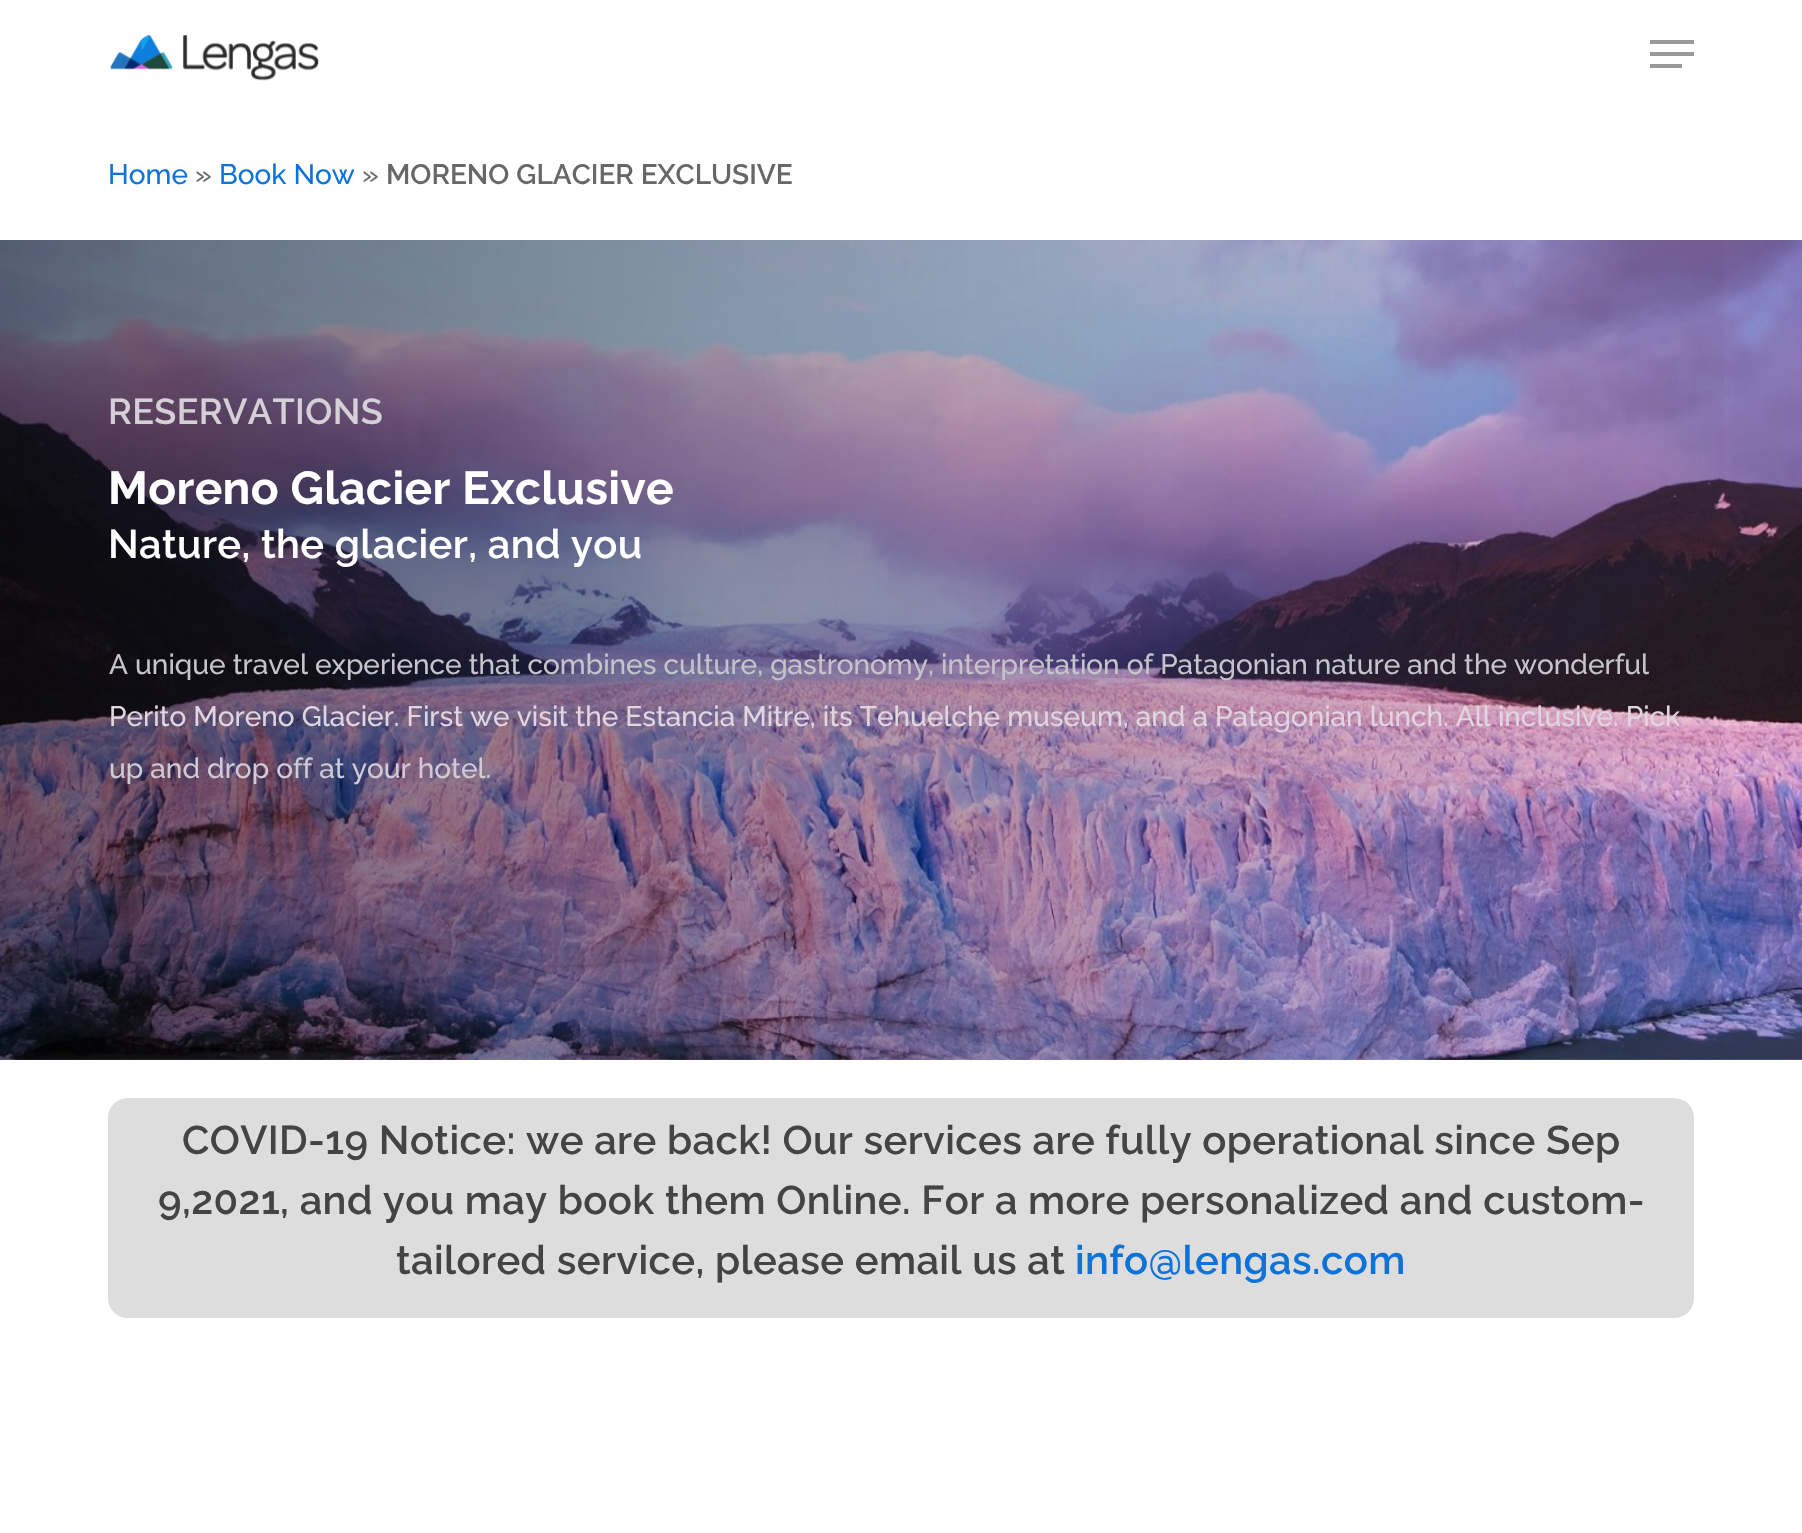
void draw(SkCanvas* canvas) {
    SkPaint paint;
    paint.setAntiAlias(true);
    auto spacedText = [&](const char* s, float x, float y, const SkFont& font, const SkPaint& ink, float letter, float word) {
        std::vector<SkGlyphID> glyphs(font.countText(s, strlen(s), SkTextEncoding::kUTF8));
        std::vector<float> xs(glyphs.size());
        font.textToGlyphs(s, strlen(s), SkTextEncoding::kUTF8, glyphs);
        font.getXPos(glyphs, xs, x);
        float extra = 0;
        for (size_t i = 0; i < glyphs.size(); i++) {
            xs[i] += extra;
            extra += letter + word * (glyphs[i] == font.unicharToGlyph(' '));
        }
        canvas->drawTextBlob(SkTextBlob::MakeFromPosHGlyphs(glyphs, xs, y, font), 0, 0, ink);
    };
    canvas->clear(0xFFFFFFFF);
    canvas->drawImageRect(SkImages::DeferredFromEncodedData(SkData::MakeFromFileName("img1.png")), SkRect::MakeXYWH(110, 35, 209, 46), SkSamplingOptions());
    paint.setColor(0xFF999999);
    canvas->drawRect(SkRect::MakeXYWH(1650, 40, 44, 4), paint);
    canvas->drawRect(SkRect::MakeXYWH(1650, 64, 32, 4), paint);
    canvas->drawRect(SkRect::MakeXYWH(1650, 52, 44, 4), paint);
    SkFont font1(fontMgr->matchFamilyStyle("Raleway", SkFontStyle(500, SkFontStyle::kNormal_Width, SkFontStyle::kUpright_Slant)), 28);
    font1.setSubpixel(true);
    paint.setColor(0xFF0E73D8);
    canvas->drawString("Home", 108, 184, font1, paint);
    paint.setColor(0xFF676767);
    canvas->drawString("»", 195, 184, font1, paint);
    paint.setColor(0xFF0E73D8);
    canvas->drawString("Book Now", 219, 184, font1, paint);
    paint.setColor(0xFF676767);
    canvas->drawString("»", 362, 184, font1, paint);
    SkFont font2(fontMgr->matchFamilyStyle("Raleway", SkFontStyle(600, SkFontStyle::kNormal_Width, SkFontStyle::kUpright_Slant)), 28);
    font2.setSubpixel(true);
    canvas->drawString("MORENO GLACIER EXCLUSIVE", 386, 184, font2, paint);
    canvas->drawImageRect(SkImages::DeferredFromEncodedData(SkData::MakeFromFileName("img2.png")), SkRect::MakeXYWH(0, 240, 1802, 820), SkSamplingOptions());
    {
        const SkColor colors[] = {0x80000000, 0x00000000};
        const float stops[] = {0, 1};
        const SkPoint ends[] = {{0, 650}, {1802, 650}};
        paint.setShader(SkGradientShader::MakeLinear(ends, colors, stops, 2, SkTileMode::kClamp));
        paint.setAlpha(255);
    }
    canvas->drawRect(SkRect::MakeXYWH(0, 240, 1724, 820), paint);
    SkFont font3(fontMgr->matchFamilyStyle("Raleway", SkFontStyle(600, SkFontStyle::kNormal_Width, SkFontStyle::kUpright_Slant)), 36);
    font3.setSubpixel(true);
    paint.setShader(nullptr);
    paint.setColor(0xFFD5CFD7);
    spacedText("RESERVATIONS", 108, 424, font3, paint, 0.4f, 0);
    SkFont font4(fontMgr->matchFamilyStyle("Raleway", SkFontStyle::Bold()), 46);
    font4.setSubpixel(true);
    paint.setColor(0xFFFFFFFF);
    spacedText("Moreno Glacier Exclusive", 108, 504, font4, paint, 0.4f, 0);
    SkFont font5(fontMgr->matchFamilyStyle("Raleway", SkFontStyle(600, SkFontStyle::kNormal_Width, SkFontStyle::kUpright_Slant)), 40);
    font5.setSubpixel(true);
    spacedText("Nature, the glacier, and you", 108, 558, font5, paint, 0.4f, 0);
    paint.setColor(0xFFC5C3CB);
    canvas->drawString("A unique travel experience that combines culture, gastronomy, interpretation of Patagonian nature and the wonderful", 109, 674, font1, paint);
    paint.setColor(0xFFDFD6E0);
    canvas->drawString("Perito Moreno Glacier. First we visit the Estancia Mitre, its Tehuelche museum, and a Patagonian lunch. All inclusive. Pick", 109, 726, font1, paint);
    paint.setColor(0xFFCFCAD4);
    canvas->drawString("up and drop off at your hotel.", 109, 778, font1, paint);
    paint.setColor(0xFFDDDDDD);
    canvas->drawRoundRect(SkRect::MakeXYWH(108, 1098, 1586, 220), 20, 20, paint);
    paint.setColor(0xFF444444);
    spacedText("COVID-19 Notice: we are back! Our services are fully operational since Sep", 182, 1154, font5, paint, 0.4f, 0);
    spacedText("9,2021, and you may book them Online. For a more personalized and custom-", 158, 1214, font5, paint, 0.4f, 0);
    spacedText("tailored service, please email us at", 396, 1274, font5, paint, 0.4f, 0);
    paint.setColor(0xFF0E73D8);
    spacedText("info@lengas.com", 1075, 1274, font5, paint, 0.4f, 0);
}
